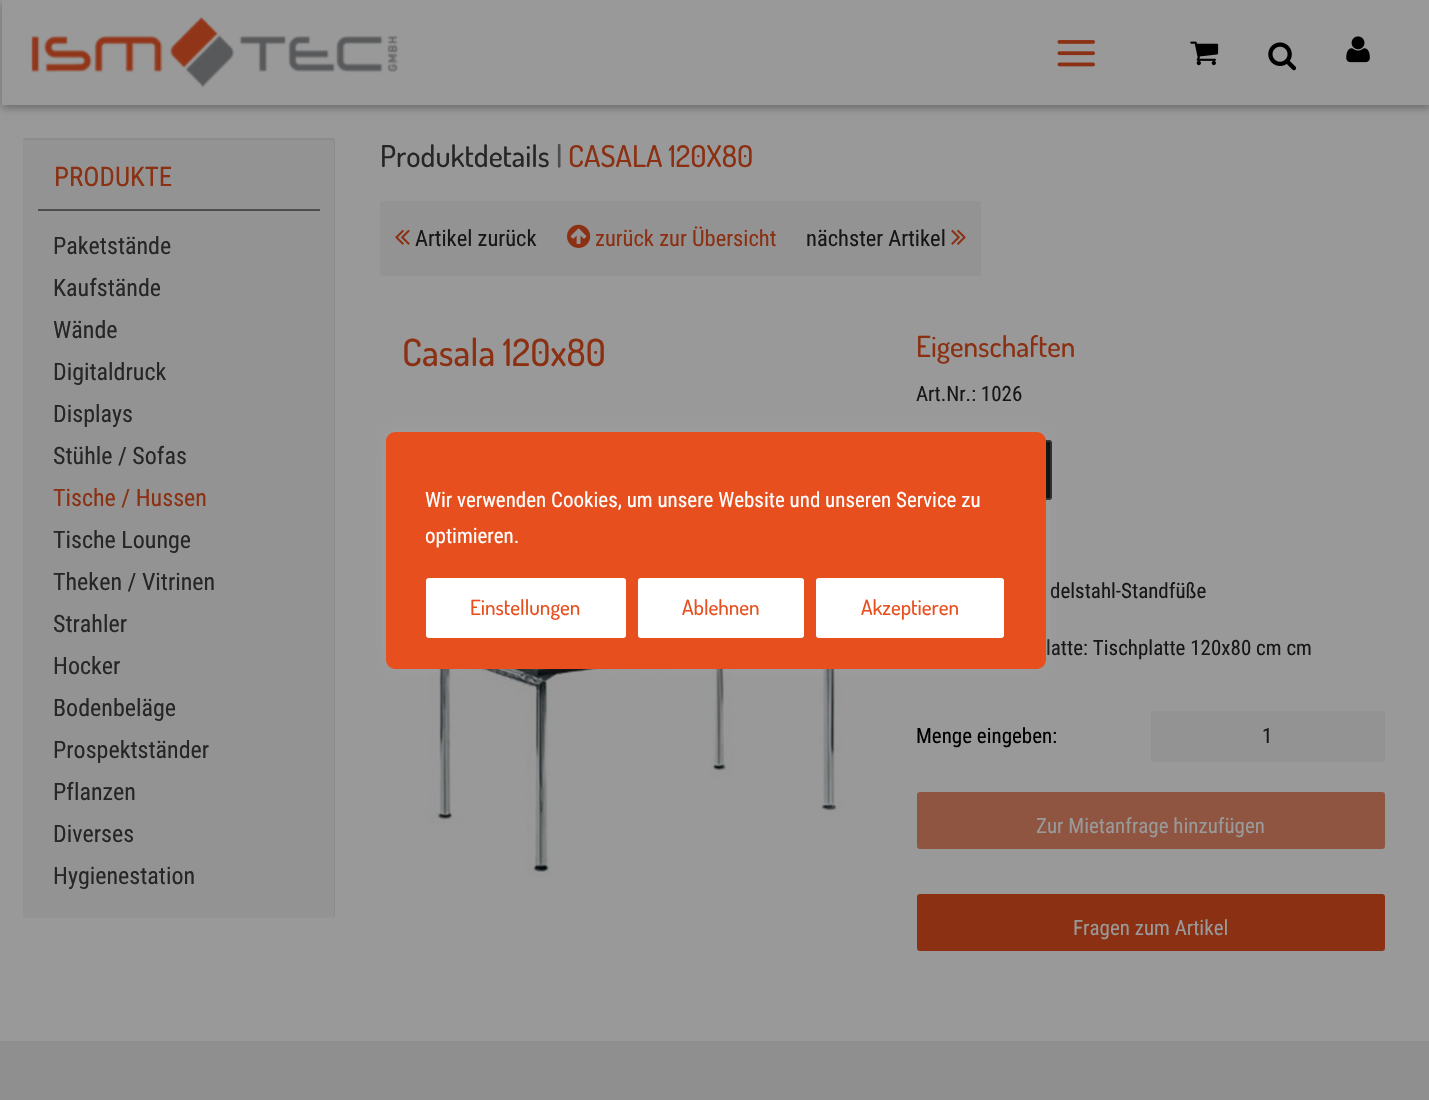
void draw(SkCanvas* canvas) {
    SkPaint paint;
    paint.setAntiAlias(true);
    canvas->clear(0xFF999999);
    canvas->save();
    canvas->clipPath(SkPathBuilder(SkPathFillType::kEvenOdd).moveTo(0, 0).lineTo(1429, 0).lineTo(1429, 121).lineTo(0, 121).close().moveTo(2, 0).lineTo(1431, 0).lineTo(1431, 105).lineTo(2, 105).close().detach(), true);
    paint.setColor(0x4D000000);
    paint.setMaskFilter(SkMaskFilter::MakeBlur(kNormal_SkBlurStyle, 4));
    canvas->drawRect(SkRect::MakeXYWH(2, 3, 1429, 105), paint);
    paint.setMaskFilter(nullptr);
    canvas->restore();
    canvas->drawImageRect(SkImages::DeferredFromEncodedData(SkData::MakeFromFileName("img1.png")), SkRect::MakeXYWH(31, 17, 367, 70), SkSamplingOptions());
    canvas->drawImageRect(SkImages::DeferredFromEncodedData(SkData::MakeFromFileName("img2.png")), SkRect::MakeXYWH(1057, 40, 38, 27), SkSamplingOptions());
    canvas->drawImageRect(SkImages::DeferredFromEncodedData(SkData::MakeFromFileName("img3.png")), SkRect::MakeXYWH(1190, 41, 29, 25), SkSamplingOptions());
    canvas->drawImageRect(SkImages::DeferredFromEncodedData(SkData::MakeFromFileName("img4.png")), SkRect::MakeXYWH(1268, 42, 29, 29), SkSamplingOptions());
    canvas->drawImageRect(SkImages::DeferredFromEncodedData(SkData::MakeFromFileName("img5.png")), SkRect::MakeXYWH(1346, 36, 24, 27), SkSamplingOptions());
    paint.setColor(0xFF939393);
    canvas->drawRoundRect(SkRect::MakeXYWH(23, 138, 312, 780), 3, 3, paint);
    paint.setColor(0x0D000000);
    canvas->drawPath(SkPathBuilder().moveTo(26, 140).lineTo(332, 140).cubicTo(333, 140, 334, 141, 334, 142).lineTo(334, 917).cubicTo(335, 917, 335, 916, 335, 915).lineTo(335, 141).cubicTo(335, 139, 334, 138, 332, 138).lineTo(26, 138).cubicTo(24, 138, 23, 139, 23, 141).close().detach(), paint);
    SkFont font1(fontMgr->matchFamilyStyle("Roboto Condensed", SkFontStyle::Normal()), 27);
    font1.setSubpixel(true);
    paint.setColor(0xFF8B3012);
    canvas->drawString("PRODUKTE", 54, 186, font1, paint);
    paint.setColor(0xFF4D4D4D);
    canvas->drawRect(SkRect::MakeXYWH(38, 209, 282, 2), paint);
    SkFont font2(fontMgr->matchFamilyStyle("Roboto Condensed", SkFontStyle::Normal()), 24);
    font2.setSubpixel(true);
    paint.setColor(0xFF262626);
    canvas->drawString("Paketstände", 53, 254, font2, paint);
    canvas->drawString("Kaufstände", 53, 296, font2, paint);
    canvas->drawString("Wände", 53, 338, font2, paint);
    canvas->drawString("Digitaldruck", 53, 380, font2, paint);
    canvas->drawString("Displays", 53, 422, font2, paint);
    canvas->drawString("Stühle / Sofas", 53, 464, font2, paint);
    paint.setColor(0xFF8B3012);
    canvas->drawString("Tische / Hussen", 53, 506, font2, paint);
    paint.setColor(0xFF262626);
    canvas->drawString("Tische Lounge", 53, 548, font2, paint);
    canvas->drawString("Theken / Vitrinen", 53, 590, font2, paint);
    canvas->drawString("Strahler", 53, 632, font2, paint);
    canvas->drawString("Hocker", 53, 674, font2, paint);
    canvas->drawString("Bodenbeläge", 53, 716, font2, paint);
    canvas->drawString("Prospektständer", 53, 758, font2, paint);
    canvas->drawString("Pflanzen", 53, 800, font2, paint);
    canvas->drawString("Diverses", 53, 842, font2, paint);
    canvas->drawString("Hygienestation", 53, 884, font2, paint);
    SkFont font3(fontMgr->matchFamilyStyle("Dosis", SkFontStyle(500, SkFontStyle::kNormal_Width, SkFontStyle::kUpright_Slant)), 30);
    font3.setSubpixel(true);
    canvas->drawString("Produktdetails", 380, 167, font3, paint);
    paint.setColor(0xFF4D4D4D);
    canvas->drawString("|", 556, 167, font3, paint);
    paint.setColor(0xFF8B3012);
    canvas->drawString("CASALA 120X80", 568, 167, font3, paint);
    paint.setColor(0xFF939393);
    canvas->drawRoundRect(SkRect::MakeXYWH(380, 201, 601, 75), 3, 3, paint);
    canvas->drawImageRect(SkImages::DeferredFromEncodedData(SkData::MakeFromFileName("img6.png")), SkRect::MakeXYWH(395, 229, 15, 16), SkSamplingOptions());
    SkFont font4(fontMgr->matchFamilyStyle("Roboto Condensed", SkFontStyle::Normal()), 22.5f);
    font4.setSubpixel(true);
    paint.setColor(0xFF171717);
    canvas->drawString("Artikel zurück", 415, 246, font4, paint);
    canvas->drawImageRect(SkImages::DeferredFromEncodedData(SkData::MakeFromFileName("img7.png")), SkRect::MakeXYWH(567, 224, 24, 24), SkSamplingOptions());
    paint.setColor(0xFF8B3012);
    canvas->drawString("zurück zur Übersicht", 595, 246, font4, paint);
    paint.setColor(0xFF171717);
    canvas->drawString("nächster Artikel", 806, 246, font4, paint);
    canvas->drawImageRect(SkImages::DeferredFromEncodedData(SkData::MakeFromFileName("img8.png")), SkRect::MakeXYWH(951, 229, 15, 16), SkSamplingOptions());
    SkFont font5(fontMgr->matchFamilyStyle("Dosis", SkFontStyle(500, SkFontStyle::kNormal_Width, SkFontStyle::kUpright_Slant)), 37.5f);
    font5.setSubpixel(true);
    paint.setColor(0xFF8B3012);
    canvas->drawString("Casala 120x80", 402, 366, font5, paint);
    canvas->drawImageRect(SkImages::DeferredFromEncodedData(SkData::MakeFromFileName("img9.png")), SkRect::MakeXYWH(422, 669, 429, 208), SkSamplingOptions());
    SkFont font6(fontMgr->matchFamilyStyle("Dosis", SkFontStyle(500, SkFontStyle::kNormal_Width, SkFontStyle::kUpright_Slant)), 29);
    font6.setSubpixel(true);
    canvas->drawString("Eigenschaften", 916, 357, font6, paint);
    SkFont font7(fontMgr->matchFamilyStyle("Roboto Condensed", SkFontStyle::Normal()), 21);
    font7.setSubpixel(true);
    paint.setColor(0xFF171717);
    canvas->drawString("Art.Nr.: 1026", 916, 401, font7, paint);
    paint.setColor(0xFF000000);
    canvas->drawRoundRect(SkRect::MakeXYWH(993, 441, 58, 58), 2, 2, paint);
    paint.setStyle(SkPaint::kStroke_Style);
    paint.setStrokeWidth(2);
    paint.setColor(0xFF262626);
    canvas->drawRoundRect(SkRect::MakeXYWH(993, 441, 58, 58), 2, 2, paint);
    paint.setStyle(SkPaint::kFill_Style);
    paint.setColor(0xFF171717);
    canvas->drawString("delstahl-Standfüße", 1050, 598, font7, paint);
    canvas->drawString("latte: Tischplatte 120x80 cm cm", 1046, 655, font7, paint);
    paint.setColor(0xFF000000);
    canvas->drawString("Menge eingeben:", 916, 743, font7, paint);
    paint.setColor(0xFF939393);
    canvas->drawRect(SkRect::MakeXYWH(1151, 711, 234, 51), paint);
    paint.setColor(0xFF171717);
    canvas->drawString("1", 1262, 743, font7, paint);
    paint.setColor(0xFF8F5541);
    canvas->drawRoundRect(SkRect::MakeXYWH(918, 793, 466, 55), 2, 2, paint);
    paint.setStyle(SkPaint::kStroke_Style);
    canvas->drawRoundRect(SkRect::MakeXYWH(918, 793, 466, 55), 2, 2, paint);
    paint.setStyle(SkPaint::kFill_Style);
    paint.setColor(0xFF999999);
    canvas->drawString("Zur Mietanfrage hinzufügen", 1036, 833, font7, paint);
    paint.setColor(0xFF8B3012);
    canvas->drawRoundRect(SkRect::MakeXYWH(918, 895, 466, 55), 2, 2, paint);
    paint.setStyle(SkPaint::kStroke_Style);
    canvas->drawRoundRect(SkRect::MakeXYWH(918, 895, 466, 55), 2, 2, paint);
    paint.setStyle(SkPaint::kFill_Style);
    paint.setColor(0xFF999999);
    canvas->drawString("Fragen zum Artikel", 1073, 935, font7, paint);
    paint.setColor(0xFF8F8F8F);
    canvas->drawRect(SkRect::MakeXYWH(0, 1041, 1429, 59), paint);
    paint.setColor(0x4DACABAB);
    paint.setMaskFilter(SkMaskFilter::MakeBlur(kNormal_SkBlurStyle, 7.5f));
    canvas->drawRoundRect(SkRect::MakeXYWH(386, 431, 660, 237), 9, 9, paint);
    paint.setMaskFilter(nullptr);
    paint.setColor(0xFFE7501E);
    canvas->drawRoundRect(SkRect::MakeXYWH(387, 433, 658, 235), 8, 8, paint);
    paint.setStyle(SkPaint::kStroke_Style);
    canvas->drawRoundRect(SkRect::MakeXYWH(387, 433, 658, 235), 8, 8, paint);
    paint.setStyle(SkPaint::kFill_Style);
    paint.setColor(0xFFFFFFFF);
    canvas->drawString("Wir verwenden Cookies, um unsere Website und unseren Service zu", 425, 507, font7, paint);
    canvas->drawString("optimieren.", 425, 543, font7, paint);
    canvas->drawRoundRect(SkRect::MakeXYWH(426, 578, 200, 60), 3, 3, paint);
    SkFont font8(fontMgr->matchFamilyStyle("Dosis", SkFontStyle(500, SkFontStyle::kNormal_Width, SkFontStyle::kUpright_Slant)), 21);
    font8.setSubpixel(true);
    paint.setColor(0xFFE7501E);
    canvas->drawString("Einstellungen", 470, 615, font8, paint);
    paint.setColor(0xFFFFFFFF);
    canvas->drawRoundRect(SkRect::MakeXYWH(638, 578, 166, 60), 3, 3, paint);
    paint.setColor(0xFFE7501E);
    canvas->drawString("Ablehnen", 682, 615, font8, paint);
    paint.setColor(0xFFFFFFFF);
    canvas->drawRoundRect(SkRect::MakeXYWH(816, 578, 188, 60), 3, 3, paint);
    paint.setColor(0xFFE7501E);
    canvas->drawString("Akzeptieren", 861, 615, font8, paint);
}
